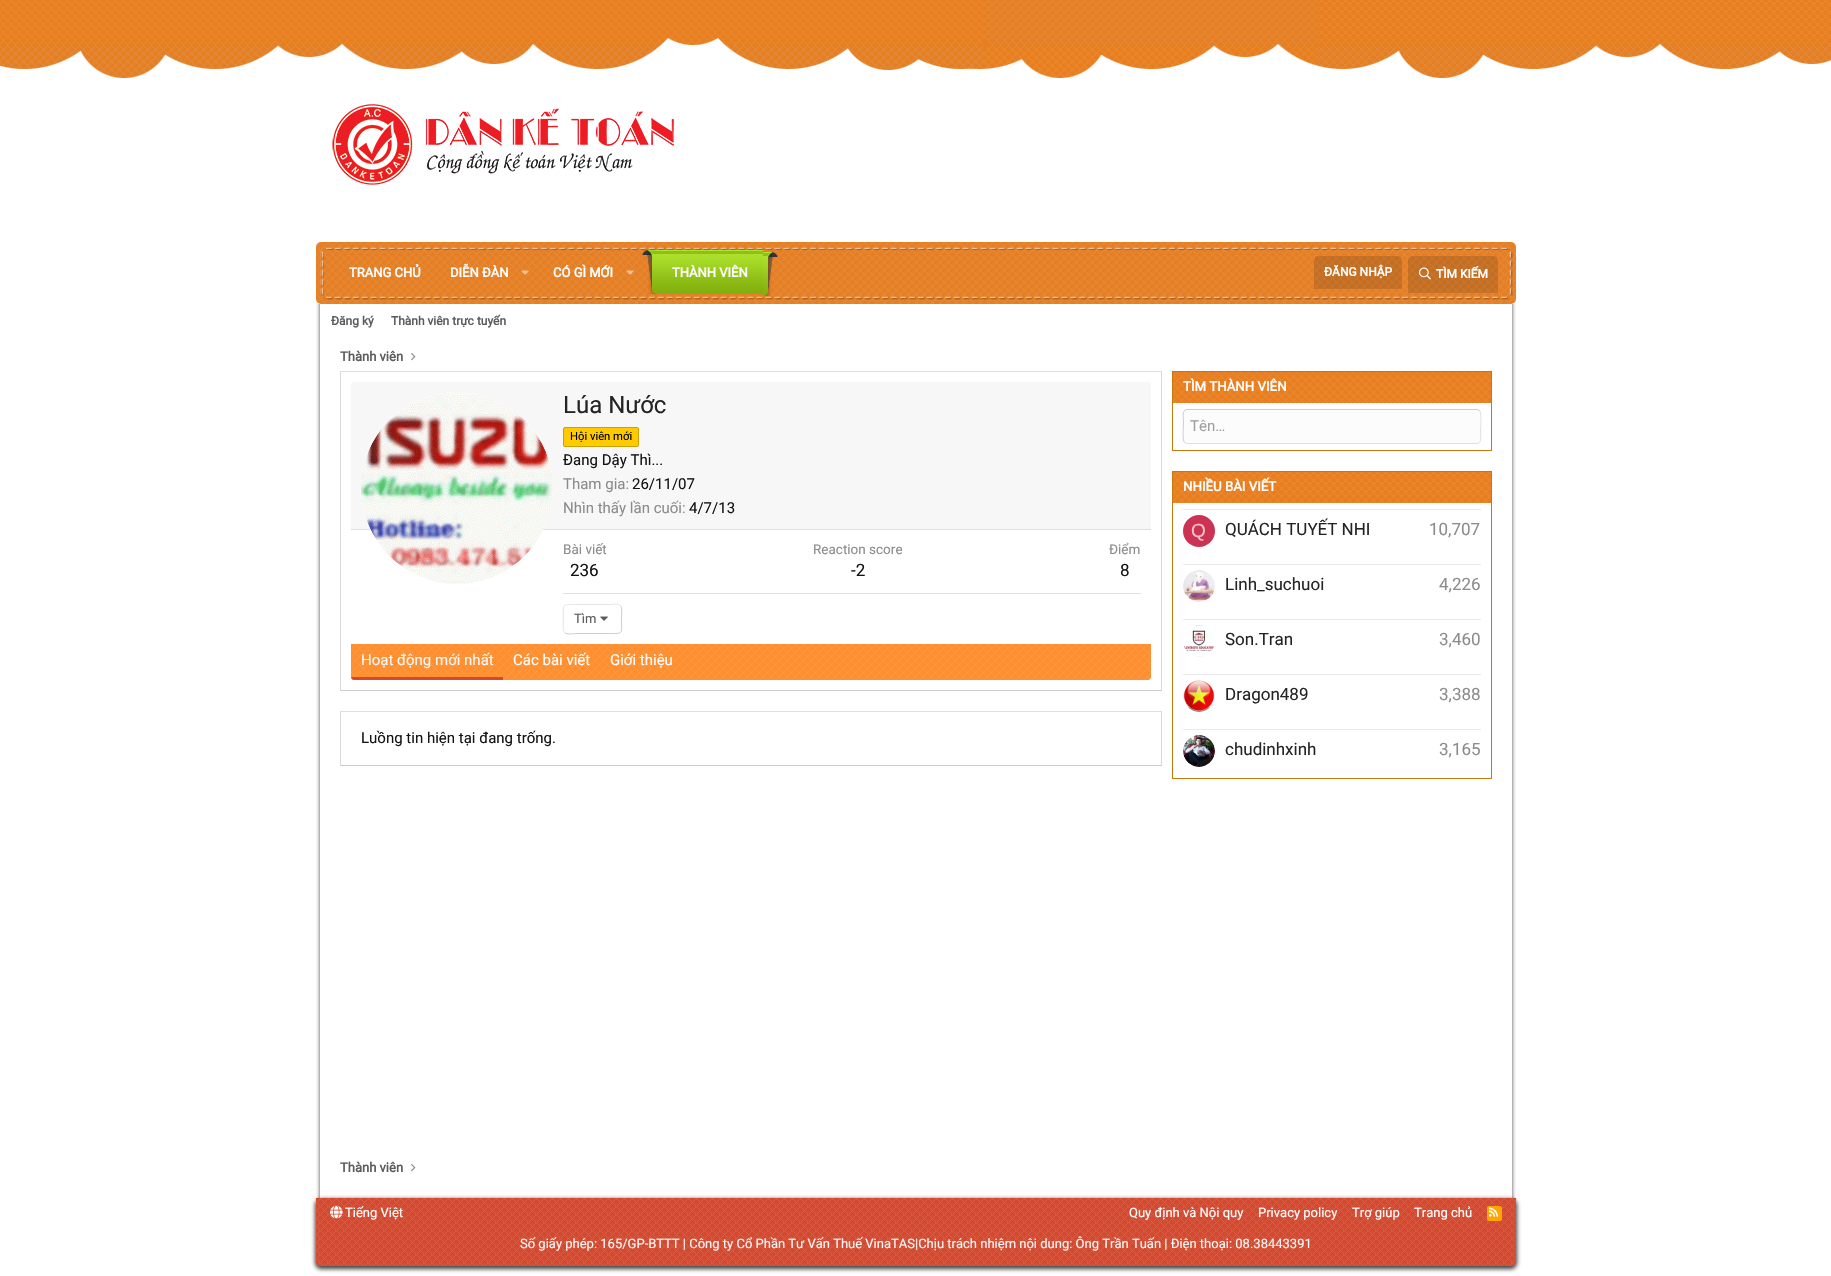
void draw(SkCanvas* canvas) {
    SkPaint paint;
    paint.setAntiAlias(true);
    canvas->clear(0xFFFFFFFF);
    canvas->drawImageRect(SkImages::DeferredFromEncodedData(SkData::MakeFromFileName("img1.png")), SkRect::MakeXYWH(0, 0, 1831, 78), SkSamplingOptions());
    canvas->drawImageRect(SkImages::DeferredFromEncodedData(SkData::MakeFromFileName("img2.png")), SkRect::MakeXYWH(332, 104, 342, 81), SkSamplingOptions());
    paint.setColor(0xFFE67E22);
    canvas->drawRoundRect(SkRect::MakeXYWH(316, 242, 1200, 62), 5, 5, paint);
    canvas->drawImageRect(SkImages::DeferredFromEncodedData(SkData::MakeFromFileName("img3.png")), SkRect::MakeXYWH(316, 242, 1200, 62), SkSamplingOptions());
    canvas->drawImageRect(SkImages::DeferredFromEncodedData(SkData::MakeFromFileName("img4.png")), SkRect::MakeXYWH(320, 247, 1193, 53), SkSamplingOptions());
    SkFont font1(fontMgr->matchFamilyStyle("Roboto", SkFontStyle::Bold()), 13);
    font1.setSubpixel(true);
    paint.setColor(0xFFFFFFFF);
    canvas->drawString("TRANG CHỦ", 349, 277, font1, paint);
    canvas->drawString("DIỄN ĐÀN", 450, 277, font1, paint);
    canvas->drawImageRect(SkImages::DeferredFromEncodedData(SkData::MakeFromFileName("img5.png")), SkRect::MakeXYWH(521, 270, 8, 5), SkSamplingOptions());
    canvas->drawString("CÓ GÌ MỚI", 553, 277, font1, paint);
    canvas->drawImageRect(SkImages::DeferredFromEncodedData(SkData::MakeFromFileName("img6.png")), SkRect::MakeXYWH(626, 270, 8, 5), SkSamplingOptions());
    canvas->drawImageRect(SkImages::DeferredFromEncodedData(SkData::MakeFromFileName("img7.png")), SkRect::MakeXYWH(642, 250, 15, 44), SkSamplingOptions());
    canvas->drawImageRect(SkImages::DeferredFromEncodedData(SkData::MakeFromFileName("img8.png")), SkRect::MakeXYWH(657, 250, 106, 44), SkSamplingOptions());
    canvas->drawString("THÀNH VIÊN", 672, 277, font1, paint);
    canvas->drawImageRect(SkImages::DeferredFromEncodedData(SkData::MakeFromFileName("img9.png")), SkRect::MakeXYWH(763, 252, 15, 44), SkSamplingOptions());
    paint.setColor(0x26141414);
    canvas->drawPath(SkPathBuilder().moveTo(1318, 256).lineTo(1398, 256).cubicTo(1400, 256, 1402, 258, 1402, 260).lineTo(1402, 289).lineTo(1314, 289).lineTo(1314, 260).cubicTo(1314, 258, 1316, 256, 1318, 256).close().detach(), paint);
    SkFont font2(fontMgr->matchFamilyStyle("Roboto", SkFontStyle::Bold()), 12);
    font2.setSubpixel(true);
    paint.setColor(0xFFFFFFFF);
    canvas->drawString("ĐĂNG NHẬP", 1324, 276, font2, paint);
    paint.setColor(0x26141414);
    canvas->drawPath(SkPathBuilder().moveTo(1412, 256).lineTo(1494, 256).cubicTo(1496, 256, 1498, 258, 1498, 260).lineTo(1498, 293).lineTo(1408, 293).lineTo(1408, 260).cubicTo(1408, 258, 1410, 256, 1412, 256).close().detach(), paint);
    canvas->drawImageRect(SkImages::DeferredFromEncodedData(SkData::MakeFromFileName("img10.png")), SkRect::MakeXYWH(1419, 267, 12, 13), SkSamplingOptions());
    paint.setColor(0xFFFFFFFF);
    canvas->drawString("TÌM KIẾM", 1436, 278, font2, paint);
    canvas->drawImageRect(SkImages::DeferredFromEncodedData(SkData::MakeFromFileName("img11.png")), SkRect::MakeXYWH(316, 304, 1200, 33), SkSamplingOptions());
    paint.setColor(0xFF5C5C5C);
    canvas->drawString("Đăng ký", 331, 325, font2, paint);
    canvas->drawString("Thành viên trực tuyến", 391, 325, font2, paint);
    canvas->drawImageRect(SkImages::DeferredFromEncodedData(SkData::MakeFromFileName("img12.png")), SkRect::MakeXYWH(316, 337, 1200, 861), SkSamplingOptions());
    canvas->drawString("Thành viên", 340, 361, font1, paint);
    canvas->drawImageRect(SkImages::DeferredFromEncodedData(SkData::MakeFromFileName("img13.png")), SkRect::MakeXYWH(411, 353, 5, 8), SkSamplingOptions());
    paint.setColor(0xFFE0E0E0);
    canvas->drawRect(SkRect::MakeXYWH(340, 371, 822, 1), paint);
    paint.setColor(0xFFD9D9D9);
    canvas->drawRect(SkRect::MakeXYWH(1161, 371, 1, 320), paint);
    paint.setColor(0xFFCCCCCC);
    canvas->drawRect(SkRect::MakeXYWH(340, 690, 822, 1), paint);
    paint.setColor(0xFFD9D9D9);
    canvas->drawRect(SkRect::MakeXYWH(340, 371, 1, 320), paint);
    paint.setColor(0xFFF7F7F7);
    canvas->drawPath(SkPathBuilder().moveTo(354, 382).lineTo(1148, 382).cubicTo(1149.5f, 382, 1151, 383.5f, 1151, 385).lineTo(1151, 530).lineTo(351, 530).lineTo(351, 385).cubicTo(351, 383.5f, 352.5f, 382, 354, 382).close().detach(), paint);
    paint.setColor(0xFFE0E0E0);
    canvas->drawRect(SkRect::MakeXYWH(351, 529, 800, 1), paint);
    paint.setColor(0xFFFFFFFF);
    canvas->drawCircle(457, 488, 96, paint);
    canvas->drawImageRect(SkImages::DeferredFromEncodedData(SkData::MakeFromFileName("img14.png")), SkRect::MakeXYWH(361, 392, 192, 192), SkSamplingOptions());
    SkFont font3(fontMgr->matchFamilyStyle("Roboto", SkFontStyle::Normal()), 24);
    font3.setSubpixel(true);
    paint.setColor(0xFF242424);
    canvas->drawString("Lúa Nước", 563, 413, font3, paint);
    paint.setColor(0xFFFFCB00);
    canvas->drawRoundRect(SkRect::MakeXYWH(563.5f, 427.5f, 75, 19), 1.5f, 1.5f, paint);
    paint.setStyle(SkPaint::kStroke_Style);
    paint.setStrokeWidth(1);
    paint.setColor(0xFFCCA200);
    canvas->drawRoundRect(SkRect::MakeXYWH(563.5f, 427.5f, 75, 19), 1.5f, 1.5f, paint);
    SkFont font4(fontMgr->matchFamilyStyle("Roboto", SkFontStyle::Normal()), 11.25f);
    font4.setSubpixel(true);
    paint.setStyle(SkPaint::kFill_Style);
    paint.setColor(0xFF000000);
    canvas->drawString("Hội viên mới", 570, 440, font4, paint);
    SkFont font5(fontMgr->matchFamilyStyle("Roboto", SkFontStyle::Normal()), 15);
    font5.setSubpixel(true);
    paint.setColor(0xFF141414);
    canvas->drawString("Đang Dậy Thì...", 563, 465, font5, paint);
    paint.setColor(0xFF8C8C8C);
    canvas->drawString("Tham gia:", 563, 489, font5, paint);
    paint.setColor(0xFF141414);
    canvas->drawString("26/11/07", 632, 489, font5, paint);
    paint.setColor(0xFF8C8C8C);
    canvas->drawString("Nhìn thấy lần cuối:", 563, 513, font5, paint);
    paint.setColor(0xFF141414);
    canvas->drawString("4/7/13", 689, 513, font5, paint);
    SkFont font6(fontMgr->matchFamilyStyle("Roboto", SkFontStyle::Normal()), 13.5f);
    font6.setSubpixel(true);
    paint.setColor(0xFF8C8C8C);
    canvas->drawString("Bài viết", 563, 554, font6, paint);
    SkFont font7(fontMgr->matchFamilyStyle("Roboto", SkFontStyle::Normal()), 17);
    font7.setSubpixel(true);
    paint.setColor(0xFF141414);
    canvas->drawString("236", 570, 576, font7, paint);
    paint.setColor(0xFF8C8C8C);
    canvas->drawString("Reaction score", 813, 554, font6, paint);
    paint.setColor(0xFF141414);
    canvas->drawString("-2", 851, 576, font7, paint);
    paint.setColor(0xFF8C8C8C);
    canvas->drawString("Điểm", 1109, 554, font6, paint);
    paint.setColor(0xFF141414);
    canvas->drawString("8", 1120, 576, font7, paint);
    paint.setColor(0xFFE0E0E0);
    canvas->drawRect(SkRect::MakeXYWH(563, 593, 578, 1), paint);
    paint.setStyle(SkPaint::kStroke_Style);
    paint.setColor(0xFFCCCCCC);
    canvas->drawPath(SkPathBuilder().moveTo(620.5f, 605.5f).cubicTo(622.5f, 607.5f, 621.5f, 616, 621.5f, 619).cubicTo(621.5f, 634, 624, 633.5f, 609.5f, 633.5f).lineTo(575.5f, 633.5f).cubicTo(574.5f, 633.5f, 567, 635, 564.5f, 632.5f).detach(), paint);
    paint.setColor(0xFFE6E6E6);
    canvas->drawPath(SkPathBuilder().moveTo(564.5f, 632.5f).cubicTo(562.5f, 630.5f, 563.5f, 622, 563.5f, 619).cubicTo(563.5f, 604, 561, 604.5f, 575.5f, 604.5f).lineTo(609.5f, 604.5f).cubicTo(610.5f, 604.5f, 618, 603, 620.5f, 605.5f).detach(), paint);
    SkFont font8(fontMgr->matchFamilyStyle("Roboto", SkFontStyle::Normal()), 13);
    font8.setSubpixel(true);
    paint.setStyle(SkPaint::kFill_Style);
    paint.setColor(0xFF5C5C5C);
    canvas->drawString("Tìm", 574, 623, font8, paint);
    canvas->drawImageRect(SkImages::DeferredFromEncodedData(SkData::MakeFromFileName("img15.png")), SkRect::MakeXYWH(600, 616, 8, 5), SkSamplingOptions());
    paint.setColor(0xFFFB8F31);
    canvas->drawPath(SkPathBuilder().moveTo(351, 644).lineTo(1151, 644).lineTo(1151, 677).cubicTo(1151, 678.5f, 1149.5f, 680, 1148, 680).lineTo(354, 680).cubicTo(352.5f, 680, 351, 678.5f, 351, 677).close().detach(), paint);
    canvas->drawImageRect(SkImages::DeferredFromEncodedData(SkData::MakeFromFileName("img16.png")), SkRect::MakeXYWH(351, 644, 800, 36), SkSamplingOptions());
    paint.setColor(0xFFD44A30);
    canvas->drawPath(SkPathBuilder().moveTo(351, 677).lineTo(503, 677).lineTo(503, 680).lineTo(354, 680).cubicTo(352.5f, 680, 351, 678.5f, 351, 677).close().detach(), paint);
    paint.setColor(0xFFF7F7F7);
    canvas->drawString("Hoạt động mới nhất", 361, 665, font5, paint);
    paint.setColor(0xFFFFFFFF);
    canvas->drawString("Các bài viết", 513, 665, font5, paint);
    canvas->drawString("Giới thiệu", 610, 665, font5, paint);
    paint.setColor(0xFFE0E0E0);
    canvas->drawRect(SkRect::MakeXYWH(340, 711, 822, 1), paint);
    paint.setColor(0xFFD9D9D9);
    canvas->drawRect(SkRect::MakeXYWH(1161, 711, 1, 55), paint);
    paint.setColor(0xFFCCCCCC);
    canvas->drawRect(SkRect::MakeXYWH(340, 765, 822, 1), paint);
    paint.setColor(0xFFD9D9D9);
    canvas->drawRect(SkRect::MakeXYWH(340, 711, 1, 55), paint);
    paint.setColor(0xFF141414);
    canvas->drawString("Luồng tin hiện tại đang trống.", 361, 743, font5, paint);
    paint.setStyle(SkPaint::kStroke_Style);
    paint.setColor(0xFFC7780C);
    canvas->drawRect(SkRect::MakeXYWH(1172.5f, 371.5f, 319, 79), paint);
    paint.setStyle(SkPaint::kFill_Style);
    paint.setColor(0xFFE67E22);
    canvas->drawRect(SkRect::MakeXYWH(1173, 372, 318, 31), paint);
    canvas->drawImageRect(SkImages::DeferredFromEncodedData(SkData::MakeFromFileName("img17.png")), SkRect::MakeXYWH(1173, 372, 318, 31), SkSamplingOptions());
    SkFont font9(fontMgr->matchFamilyStyle("Roboto", SkFontStyle::Bold()), 13.25f);
    font9.setSubpixel(true);
    paint.setColor(0xFFFFFFFF);
    canvas->drawString("TÌM THÀNH VIÊN", 1183, 391, font9, paint);
    paint.setColor(0xFFFCFCFC);
    canvas->drawRoundRect(SkRect::MakeXYWH(1183, 409, 298, 35), 4, 4, paint);
    paint.setStyle(SkPaint::kStroke_Style);
    paint.setColor(0xFFE0E0E0);
    canvas->drawPath(SkPathBuilder().moveTo(1479.5f, 410.5f).cubicTo(1482, 413, 1480.5f, 427.5f, 1480.5f, 431).cubicTo(1480.5f, 433.5f, 1482.5f, 443.5f, 1477, 443.5f).lineTo(1187, 443.5f).lineTo(1184.5f, 442.5f).detach(), paint);
    paint.setColor(0xFFCCCCCC);
    canvas->drawPath(SkPathBuilder().moveTo(1184.5f, 442.5f).cubicTo(1182, 440, 1183.5f, 425.5f, 1183.5f, 422).cubicTo(1183.5f, 419.5f, 1181.5f, 409.5f, 1187, 409.5f).lineTo(1477, 409.5f).lineTo(1479.5f, 410.5f).detach(), paint);
    paint.setStyle(SkPaint::kFill_Style);
    paint.setColor(0xFF9F9F9F);
    canvas->drawString("Tên…", 1190, 431, font5, paint);
    paint.setStyle(SkPaint::kStroke_Style);
    paint.setColor(0xFFC7780C);
    canvas->drawRect(SkRect::MakeXYWH(1172.5f, 471.5f, 319, 307), paint);
    paint.setStyle(SkPaint::kFill_Style);
    paint.setColor(0xFFE67E22);
    canvas->drawRect(SkRect::MakeXYWH(1173, 472, 318, 31), paint);
    canvas->drawImageRect(SkImages::DeferredFromEncodedData(SkData::MakeFromFileName("img17.png")), SkRect::MakeXYWH(1173, 472, 318, 31), SkSamplingOptions());
    paint.setColor(0xFFFFFFFF);
    canvas->drawString("NHIỀU BÀI VIẾT", 1183, 491, font9, paint);
    paint.setColor(0xFFE9E9E9);
    canvas->drawRect(SkRect::MakeXYWH(1183, 509, 298, 1), paint);
    paint.setColor(0xFFCC3352);
    canvas->drawCircle(1199, 531, 16, paint);
    SkFont font10(fontMgr->matchFamilyStyle("Liberation Sans", SkFontStyle::Normal()), 19);
    font10.setSubpixel(true);
    paint.setColor(0xFFF0C2CB);
    canvas->drawString("Q", 1191, 537, font10, paint);
    paint.setColor(0xFF242424);
    canvas->drawString("QUÁCH TUYẾT NHI", 1225, 535, font7, paint);
    paint.setColor(0xFF8C8C8C);
    canvas->drawString("10,707", 1429, 535, font7, paint);
    paint.setColor(0xFFE9E9E9);
    canvas->drawRect(SkRect::MakeXYWH(1183, 564, 298, 1), paint);
    canvas->drawImageRect(SkImages::DeferredFromEncodedData(SkData::MakeFromFileName("img18.png")), SkRect::MakeXYWH(1183, 570, 32, 32), SkSamplingOptions());
    paint.setColor(0xFF242424);
    canvas->drawString("Linh_suchuoi", 1225, 590, font7, paint);
    paint.setColor(0xFF8C8C8C);
    canvas->drawString("4,226", 1439, 590, font7, paint);
    paint.setColor(0xFFE9E9E9);
    canvas->drawRect(SkRect::MakeXYWH(1183, 619, 298, 1), paint);
    canvas->drawImageRect(SkImages::DeferredFromEncodedData(SkData::MakeFromFileName("img19.png")), SkRect::MakeXYWH(1184, 625, 30, 32), SkSamplingOptions());
    paint.setColor(0xFF242424);
    canvas->drawString("Son.Tran", 1225, 645, font7, paint);
    paint.setColor(0xFF8C8C8C);
    canvas->drawString("3,460", 1439, 645, font7, paint);
    paint.setColor(0xFFE9E9E9);
    canvas->drawRect(SkRect::MakeXYWH(1183, 674, 298, 1), paint);
    canvas->drawImageRect(SkImages::DeferredFromEncodedData(SkData::MakeFromFileName("img20.png")), SkRect::MakeXYWH(1183, 680, 32, 32), SkSamplingOptions());
    paint.setColor(0xFF242424);
    canvas->drawString("Dragon489", 1225, 700, font7, paint);
    paint.setColor(0xFF8C8C8C);
    canvas->drawString("3,388", 1439, 700, font7, paint);
    paint.setColor(0xFFE9E9E9);
    canvas->drawRect(SkRect::MakeXYWH(1183, 729, 298, 1), paint);
    canvas->drawImageRect(SkImages::DeferredFromEncodedData(SkData::MakeFromFileName("img21.png")), SkRect::MakeXYWH(1183, 735, 32, 32), SkSamplingOptions());
    paint.setColor(0xFF242424);
    canvas->drawString("chudinhxinh", 1225, 755, font7, paint);
    paint.setColor(0xFF8C8C8C);
    canvas->drawString("3,165", 1439, 755, font7, paint);
    paint.setColor(0xFF5C5C5C);
    canvas->drawString("Thành viên", 340, 1172, font1, paint);
    canvas->drawImageRect(SkImages::DeferredFromEncodedData(SkData::MakeFromFileName("img13.png")), SkRect::MakeXYWH(411, 1164, 5, 8), SkSamplingOptions());
    paint.setColor(0xBF000000);
    paint.setMaskFilter(SkMaskFilter::MakeBlur(kNormal_SkBlurStyle, 2));
    canvas->drawRoundRect(SkRect::MakeXYWH(315, 1199, 1202, 70), 6, 6, paint);
    paint.setMaskFilter(nullptr);
    paint.setColor(0xFFD44A30);
    canvas->drawPath(SkPathBuilder().moveTo(316, 1198).lineTo(1516, 1198).lineTo(1516, 1261).cubicTo(1516, 1264, 1514, 1266, 1511, 1266).lineTo(321, 1266).cubicTo(318, 1266, 316, 1264, 316, 1261).close().detach(), paint);
    canvas->drawImageRect(SkImages::DeferredFromEncodedData(SkData::MakeFromFileName("img22.png")), SkRect::MakeXYWH(316, 1198, 1200, 68), SkSamplingOptions());
    canvas->drawImageRect(SkImages::DeferredFromEncodedData(SkData::MakeFromFileName("img23.png")), SkRect::MakeXYWH(330, 1205, 13, 14), SkSamplingOptions());
    paint.setColor(0xFFFFFFFF);
    canvas->drawString("Tiếng Việt", 345, 1217, font8, paint);
    canvas->drawString("Quy định và Nội quy", 1129, 1217, font8, paint);
    canvas->drawString("Privacy policy", 1258, 1217, font8, paint);
    canvas->drawString("Trợ giúp", 1352, 1217, font8, paint);
    canvas->drawString("Trang chủ", 1414, 1217, font8, paint);
    paint.setColor(0xFFFFA500);
    canvas->drawRoundRect(SkRect::MakeXYWH(1487, 1206, 15, 15), 2, 2, paint);
    canvas->drawImageRect(SkImages::DeferredFromEncodedData(SkData::MakeFromFileName("img24.png")), SkRect::MakeXYWH(1489, 1207, 10, 10), SkSamplingOptions());
    paint.setColor(0xFFF7F7F7);
    canvas->drawString("Số giấy phép: 165/GP-BTTT | Công ty Cổ Phần Tư Vấn Thuế VinaTAS|Chịu trách nhiệm nội dung: Ông Trần Tuấn | Điện thoại: 08.38443391", 520, 1248, font8, paint);
}
